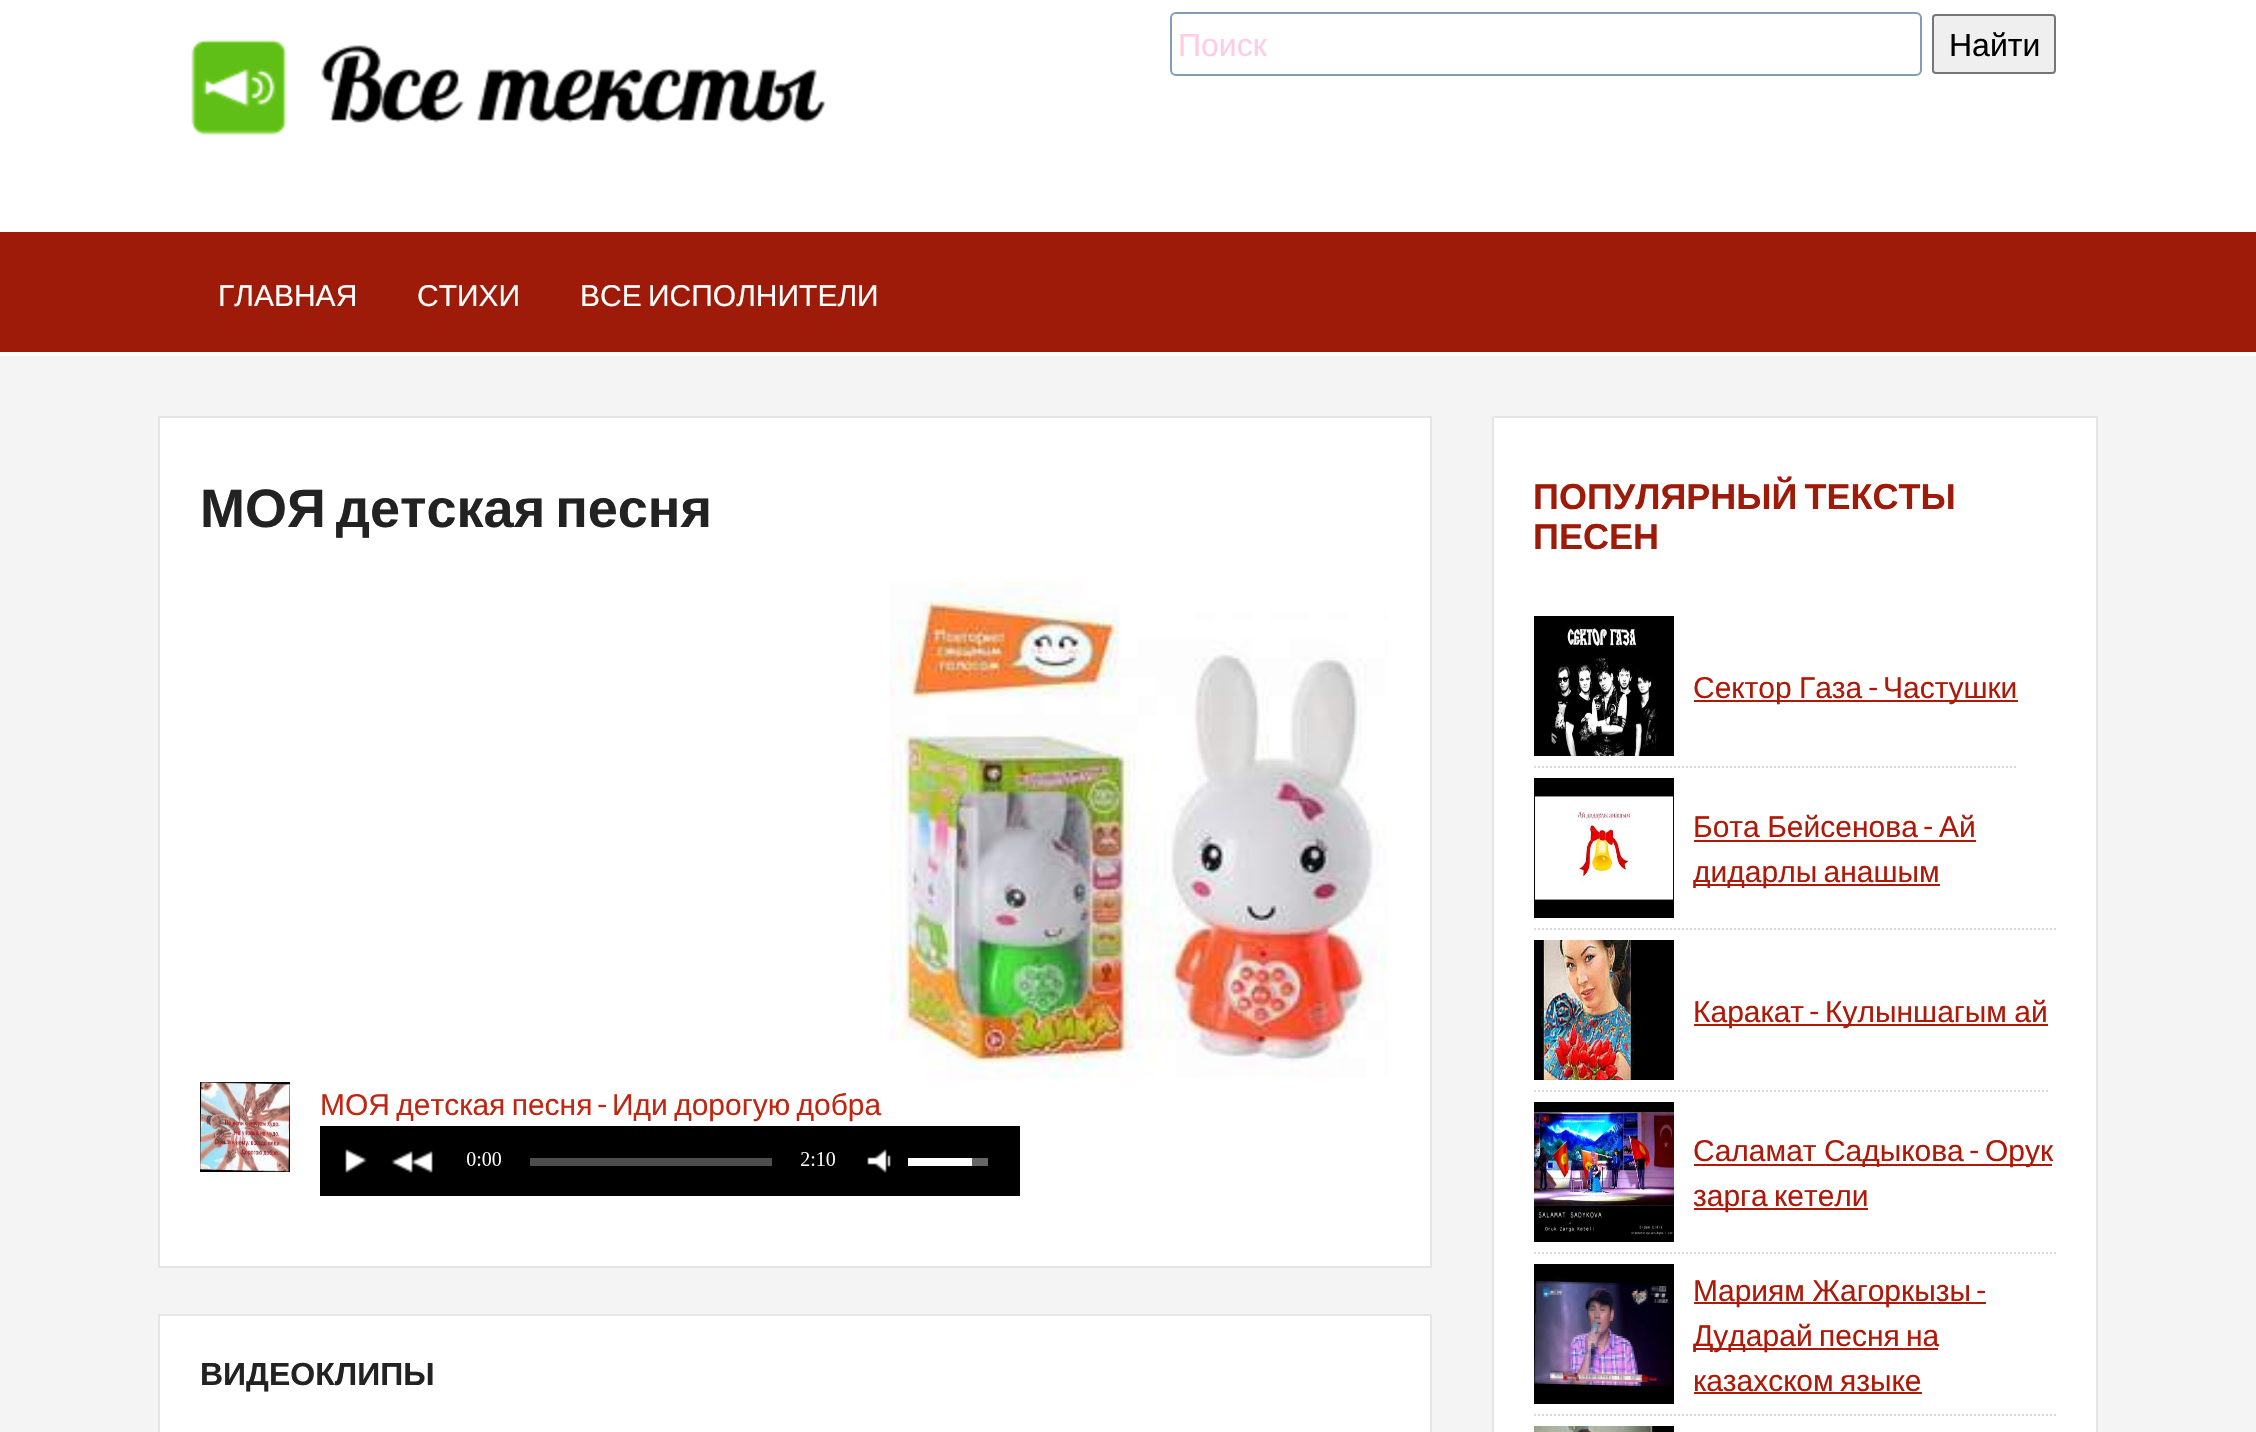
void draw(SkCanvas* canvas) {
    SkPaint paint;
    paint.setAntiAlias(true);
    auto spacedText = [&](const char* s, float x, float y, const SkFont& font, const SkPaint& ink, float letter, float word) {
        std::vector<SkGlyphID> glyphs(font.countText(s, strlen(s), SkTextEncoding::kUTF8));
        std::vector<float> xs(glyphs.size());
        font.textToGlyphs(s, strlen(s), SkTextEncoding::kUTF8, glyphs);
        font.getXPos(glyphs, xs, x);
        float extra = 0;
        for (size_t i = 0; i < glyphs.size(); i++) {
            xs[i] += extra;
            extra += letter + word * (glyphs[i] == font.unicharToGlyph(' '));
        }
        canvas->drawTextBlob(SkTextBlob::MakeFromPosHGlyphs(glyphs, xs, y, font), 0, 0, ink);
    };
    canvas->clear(0xFFF4F4F4);
    paint.setColor(0xFFFFFFFF);
    canvas->drawRect(SkRect::MakeXYWH(0, 0, 2256, 356), paint);
    canvas->drawImageRect(SkImages::DeferredFromEncodedData(SkData::MakeFromFileName("img1.png")), SkRect::MakeXYWH(191, 39, 635, 96), SkSamplingOptions());
    paint.setStyle(SkPaint::kStroke_Style);
    paint.setStrokeWidth(2);
    paint.setColor(0xFF7F9DB9);
    canvas->drawRoundRect(SkRect::MakeXYWH(1171, 13, 750, 62), 5, 5, paint);
    SkFont font1(fontMgr->matchFamilyStyle("Liberation Sans", SkFontStyle::Normal()), 32);
    font1.setSubpixel(true);
    paint.setStyle(SkPaint::kFill_Style);
    paint.setColor(0xFFFFCCE6);
    canvas->drawString("Поиск", 1178, 56, font1, paint);
    paint.setColor(0xFFEFEFEF);
    canvas->drawRoundRect(SkRect::MakeXYWH(1933, 15, 122, 58), 3, 3, paint);
    paint.setStyle(SkPaint::kStroke_Style);
    paint.setColor(0xFF767676);
    canvas->drawRoundRect(SkRect::MakeXYWH(1933, 15, 122, 58), 3, 3, paint);
    paint.setStyle(SkPaint::kFill_Style);
    paint.setColor(0xFF000000);
    canvas->drawString("Найти", 1949, 56, font1, paint);
    paint.setColor(0xFF9F1B09);
    canvas->drawRect(SkRect::MakeXYWH(0, 232, 2256, 120), paint);
    SkFont font2(fontMgr->matchFamilyStyle("Liberation Sans", SkFontStyle::Normal()), 30);
    font2.setSubpixel(true);
    paint.setColor(0xFFFFFFFF);
    canvas->drawString("ГЛАВНАЯ", 218, 306, font2, paint);
    canvas->drawString("СТИХИ", 417, 306, font2, paint);
    spacedText("ВСЕ ИСПОЛНИТЕЛИ", 580, 306, font2, paint, 0, -2);
    canvas->drawRect(SkRect::MakeXYWH(159, 417, 1272, 850), paint);
    paint.setStyle(SkPaint::kStroke_Style);
    paint.setColor(0xFFE5E5E5);
    canvas->drawRect(SkRect::MakeXYWH(159, 417, 1272, 850), paint);
    SkFont font3(fontMgr->matchFamilyStyle("Liberation Sans", SkFontStyle::Bold()), 54);
    font3.setSubpixel(true);
    paint.setStyle(SkPaint::kFill_Style);
    paint.setColor(0xFF222222);
    spacedText("МОЯ детская песня", 200, 527, font3, paint, 0, -5);
    canvas->drawImageRect(SkImages::DeferredFromEncodedData(SkData::MakeFromFileName("img2.png")), SkRect::MakeXYWH(890, 582, 498, 498), SkSamplingOptions());
    canvas->drawImageRect(SkImages::DeferredFromEncodedData(SkData::MakeFromFileName("img3.png")), SkRect::MakeXYWH(200, 1082, 90, 90), SkSamplingOptions());
    paint.setColor(0xFFC02612);
    spacedText("МОЯ детская песня", 320, 1115, font2, paint, 0, -2);
    SkFont font4(fontMgr->matchFamilyStyle("Lato", SkFontStyle::Normal()), 30);
    font4.setSubpixel(true);
    canvas->drawString("-", 597, 1115, font4, paint);
    spacedText("Иди дорогую добра", 612, 1115, font2, paint, 0, -2);
    canvas->drawImageRect(SkImages::DeferredFromEncodedData(SkData::MakeFromFileName("img4.png")), SkRect::MakeXYWH(320, 1126, 700, 70), SkSamplingOptions());
    paint.setColor(0xFFFFFFFF);
    canvas->drawRect(SkRect::MakeXYWH(159, 1315, 1272, 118), paint);
    paint.setStyle(SkPaint::kStroke_Style);
    paint.setColor(0xFFE5E5E5);
    canvas->drawRect(SkRect::MakeXYWH(159, 1315, 1272, 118), paint);
    SkFont font5(fontMgr->matchFamilyStyle("Liberation Sans", SkFontStyle::Bold()), 32);
    font5.setSubpixel(true);
    paint.setStyle(SkPaint::kFill_Style);
    paint.setColor(0xFF222222);
    canvas->drawString("ВИДЕОКЛИПЫ", 200, 1385, font5, paint);
    paint.setColor(0xFFFFFFFF);
    canvas->drawRect(SkRect::MakeXYWH(1493, 417, 604, 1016), paint);
    paint.setStyle(SkPaint::kStroke_Style);
    paint.setColor(0xFFE5E5E5);
    canvas->drawRect(SkRect::MakeXYWH(1493, 417, 604, 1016), paint);
    SkFont font6(fontMgr->matchFamilyStyle("Liberation Sans", SkFontStyle::Bold()), 36);
    font6.setSubpixel(true);
    paint.setStyle(SkPaint::kFill_Style);
    paint.setColor(0xFF9F1B09);
    spacedText("ПОПУЛЯРНЫЙ ТЕКСТЫ", 1533, 509, font6, paint, 0, -3);
    canvas->drawString("ПЕСЕН", 1533, 549, font6, paint);
    paint.setStyle(SkPaint::kStroke_Style);
    paint.setColor(0xFFDADADA);
    paint.setPathEffect(SkDashPathEffect::Make({{2, 2}}, 0));
    canvas->drawPath(SkPathBuilder().moveTo(1534, 767).lineTo(2018, 767).detach(), paint);
    paint.setPathEffect(nullptr);
    canvas->drawImageRect(SkImages::DeferredFromEncodedData(SkData::MakeFromFileName("img5.png")), SkRect::MakeXYWH(1534, 616, 140, 140), SkSamplingOptions());
    paint.setStyle(SkPaint::kFill_Style);
    paint.setColor(0xFFAE1908);
    canvas->drawRect(SkRect::MakeXYWH(1694, 700, 324, 2), paint);
    spacedText("Сектор Газа", 1693, 698, font2, paint, 0, -1);
    canvas->drawString("-", 1868, 698, font4, paint);
    canvas->drawString("Частушки", 1883, 698, font2, paint);
    paint.setStyle(SkPaint::kStroke_Style);
    paint.setColor(0xFFDADADA);
    paint.setPathEffect(SkDashPathEffect::Make({{2, 2}}, 0));
    canvas->drawPath(SkPathBuilder().moveTo(1534, 929).lineTo(2056, 929).detach(), paint);
    paint.setPathEffect(nullptr);
    canvas->drawImageRect(SkImages::DeferredFromEncodedData(SkData::MakeFromFileName("img6.png")), SkRect::MakeXYWH(1534, 778, 140, 140), SkSamplingOptions());
    paint.setStyle(SkPaint::kFill_Style);
    paint.setColor(0xFFAE1908);
    spacedText("Бота Бейсенова", 1693, 837, font2, paint, 0, -1);
    canvas->drawString("-", 1923, 837, font4, paint);
    canvas->drawRect(SkRect::MakeXYWH(1694, 840, 282, 2), paint);
    canvas->drawString("Ай", 1939, 837, font2, paint);
    canvas->drawRect(SkRect::MakeXYWH(1694, 884, 246, 2), paint);
    spacedText("дидарлы анашым", 1693, 882, font2, paint, 0, -2);
    paint.setStyle(SkPaint::kStroke_Style);
    paint.setColor(0xFFDADADA);
    paint.setPathEffect(SkDashPathEffect::Make({{2, 2}}, 0));
    canvas->drawPath(SkPathBuilder().moveTo(1534, 1091).lineTo(2048, 1091).detach(), paint);
    paint.setPathEffect(nullptr);
    canvas->drawImageRect(SkImages::DeferredFromEncodedData(SkData::MakeFromFileName("img7.png")), SkRect::MakeXYWH(1534, 940, 140, 140), SkSamplingOptions());
    paint.setStyle(SkPaint::kFill_Style);
    paint.setColor(0xFFAE1908);
    canvas->drawRect(SkRect::MakeXYWH(1694, 1024, 354, 2), paint);
    canvas->drawString("Каракат", 1693, 1022, font2, paint);
    canvas->drawString("-", 1809, 1022, font4, paint);
    spacedText("Кулыншагым ай", 1825, 1022, font2, paint, 0, -1);
    paint.setStyle(SkPaint::kStroke_Style);
    paint.setColor(0xFFDADADA);
    paint.setPathEffect(SkDashPathEffect::Make({{2, 2}}, 0));
    canvas->drawPath(SkPathBuilder().moveTo(1534, 1253).lineTo(2056, 1253).detach(), paint);
    paint.setPathEffect(nullptr);
    canvas->drawImageRect(SkImages::DeferredFromEncodedData(SkData::MakeFromFileName("img8.png")), SkRect::MakeXYWH(1534, 1102, 140, 140), SkSamplingOptions());
    paint.setStyle(SkPaint::kFill_Style);
    paint.setColor(0xFFAE1908);
    canvas->drawRect(SkRect::MakeXYWH(1694, 1164, 358, 2), paint);
    spacedText("Саламат Садыкова", 1693, 1161, font2, paint, 0, -1);
    canvas->drawString("-", 1969, 1161, font4, paint);
    canvas->drawString("Орук", 1985, 1161, font2, paint);
    canvas->drawRect(SkRect::MakeXYWH(1694, 1208, 174, 2), paint);
    spacedText("зарга кетели", 1693, 1206, font2, paint, 0, -2);
    paint.setStyle(SkPaint::kStroke_Style);
    paint.setColor(0xFFDADADA);
    paint.setPathEffect(SkDashPathEffect::Make({{2, 2}}, 0));
    canvas->drawPath(SkPathBuilder().moveTo(1534, 1415).lineTo(2056, 1415).detach(), paint);
    paint.setPathEffect(nullptr);
    canvas->drawImageRect(SkImages::DeferredFromEncodedData(SkData::MakeFromFileName("img9.png")), SkRect::MakeXYWH(1534, 1264, 140, 140), SkSamplingOptions());
    paint.setStyle(SkPaint::kFill_Style);
    paint.setColor(0xFFAE1908);
    canvas->drawRect(SkRect::MakeXYWH(1694, 1302, 292, 2), paint);
    spacedText("Мариям Жагоркызы", 1693, 1301, font2, paint, 0, -1);
    canvas->drawString("-", 1976, 1301, font4, paint);
    canvas->drawRect(SkRect::MakeXYWH(1694, 1348, 244, 2), paint);
    spacedText("Дударай песня на", 1693, 1346, font2, paint, 0, -2);
    spacedText("казахском языке", 1693, 1391, font2, paint, 0, -2);
    canvas->drawRect(SkRect::MakeXYWH(1694, 1392, 228, 2), paint);
    canvas->drawImageRect(SkImages::DeferredFromEncodedData(SkData::MakeFromFileName("img10.png")), SkRect::MakeXYWH(1534, 1426, 140, 6), SkSamplingOptions());
}
